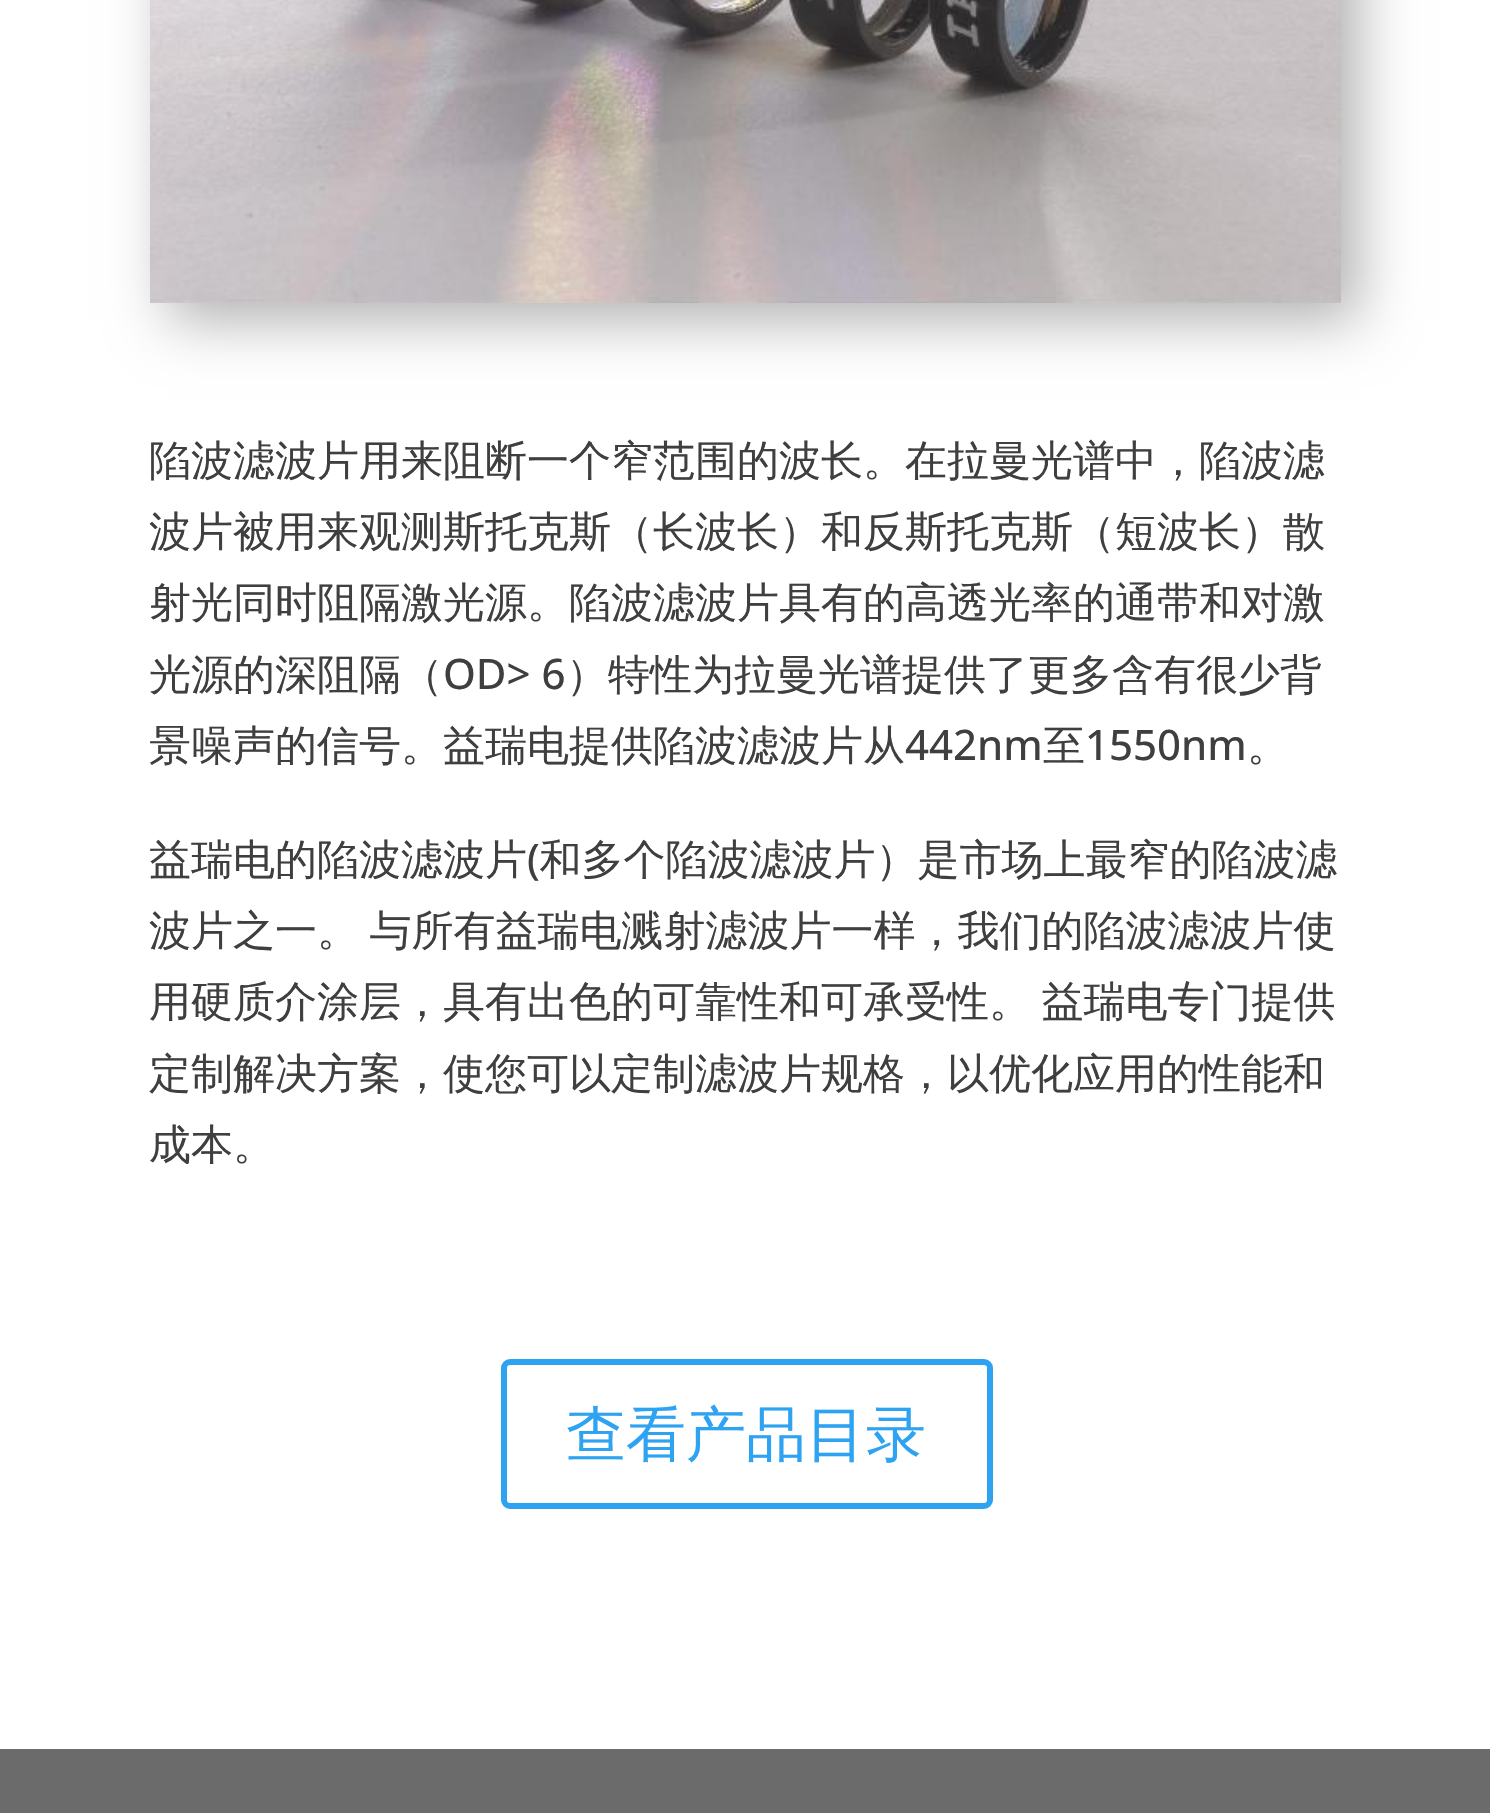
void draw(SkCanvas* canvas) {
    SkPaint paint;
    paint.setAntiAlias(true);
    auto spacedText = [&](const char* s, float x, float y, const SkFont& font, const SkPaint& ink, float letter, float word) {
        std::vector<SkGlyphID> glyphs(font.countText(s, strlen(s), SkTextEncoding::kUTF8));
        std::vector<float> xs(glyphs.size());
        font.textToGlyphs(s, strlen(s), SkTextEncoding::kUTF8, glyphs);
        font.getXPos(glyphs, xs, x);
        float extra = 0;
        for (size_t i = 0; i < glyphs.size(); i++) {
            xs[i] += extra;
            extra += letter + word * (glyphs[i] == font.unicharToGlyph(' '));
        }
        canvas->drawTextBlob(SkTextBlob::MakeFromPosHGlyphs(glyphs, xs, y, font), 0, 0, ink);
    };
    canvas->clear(0xFFFFFFFF);
    paint.setColor(0x4D000000);
    paint.setMaskFilter(SkMaskFilter::MakeBlur(kNormal_SkBlurStyle, 27));
    canvas->drawRect(SkRect::MakeXYWH(168, -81, 1191, 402), paint);
    paint.setMaskFilter(nullptr);
    canvas->drawImageRect(SkImages::DeferredFromEncodedData(SkData::MakeFromFileName("img1.png")), SkRect::MakeXYWH(150, 0, 1191, 303), SkSamplingOptions());
    SkFont font1(fontMgr->matchFamilyStyle("WenQuanYi Zen Hei", SkFontStyle(500, SkFontStyle::kNormal_Width, SkFontStyle::kUpright_Slant)), 42);
    font1.setSubpixel(true);
    paint.setColor(0xFF3F3F3F);
    canvas->drawString("陷波滤波片用来阻断一个窄范围的波长。在拉曼光谱中，陷波滤", 149, 475, font1, paint);
    canvas->drawString("波片被用来观测斯托克斯（长波长）和反斯托克斯（短波长）散", 149, 546, font1, paint);
    canvas->drawString("射光同时阻隔激光源。陷波滤波片具有的高透光率的通带和对激", 149, 617, font1, paint);
    canvas->drawString("光源的深阻隔（", 149, 689, font1, paint);
    SkFont font2(fontMgr->matchFamilyStyle("Open Sans", SkFontStyle(500, SkFontStyle::kNormal_Width, SkFontStyle::kUpright_Slant)), 42);
    font2.setSubpixel(true);
    canvas->drawString("OD> 6", 443, 689, font2, paint);
    canvas->drawString("）特性为拉曼光谱提供了更多含有很少背", 566, 689, font1, paint);
    canvas->drawString("景噪声的信号。益瑞电提供陷波滤波片从", 149, 760, font1, paint);
    canvas->drawString("442nm", 905, 760, font2, paint);
    canvas->drawString("至", 1043, 760, font1, paint);
    canvas->drawString("1550nm", 1085, 760, font2, paint);
    canvas->drawString("。", 1247, 760, font1, paint);
    canvas->drawString("益瑞电的陷波滤波片 和多个陷波滤波片）是市场上最窄的陷波滤", 149, 874, font1, paint);
    canvas->drawString("(", 527, 874, font2, paint);
    spacedText("波片之一。 与所有益瑞电溅射滤波片一样，我们的陷波滤波片使", 149, 945, font1, paint, 0, -2);
    spacedText("用硬质介涂层，具有出色的可靠性和可承受性。 益瑞电专门提供", 149, 1016, font1, paint, 0, -2);
    canvas->drawString("定制解决方案，使您可以定制滤波片规格，以优化应用的性能和", 149, 1088, font1, paint);
    canvas->drawString("成本。", 149, 1159, font1, paint);
    paint.setStyle(SkPaint::kStroke_Style);
    paint.setStrokeWidth(6);
    paint.setColor(0xFF2EA3F2);
    canvas->drawRoundRect(SkRect::MakeXYWH(504, 1362, 486, 144), 6, 6, paint);
    SkFont font3(fontMgr->matchFamilyStyle("WenQuanYi Zen Hei", SkFontStyle(500, SkFontStyle::kNormal_Width, SkFontStyle::kUpright_Slant)), 60);
    font3.setSubpixel(true);
    paint.setStyle(SkPaint::kFill_Style);
    canvas->drawString("查看产品目录", 566, 1455, font3, paint);
    paint.setColor(0xFF6B6B6B);
    canvas->drawRect(SkRect::MakeXYWH(0, 1749, 1490, 64), paint);
}
